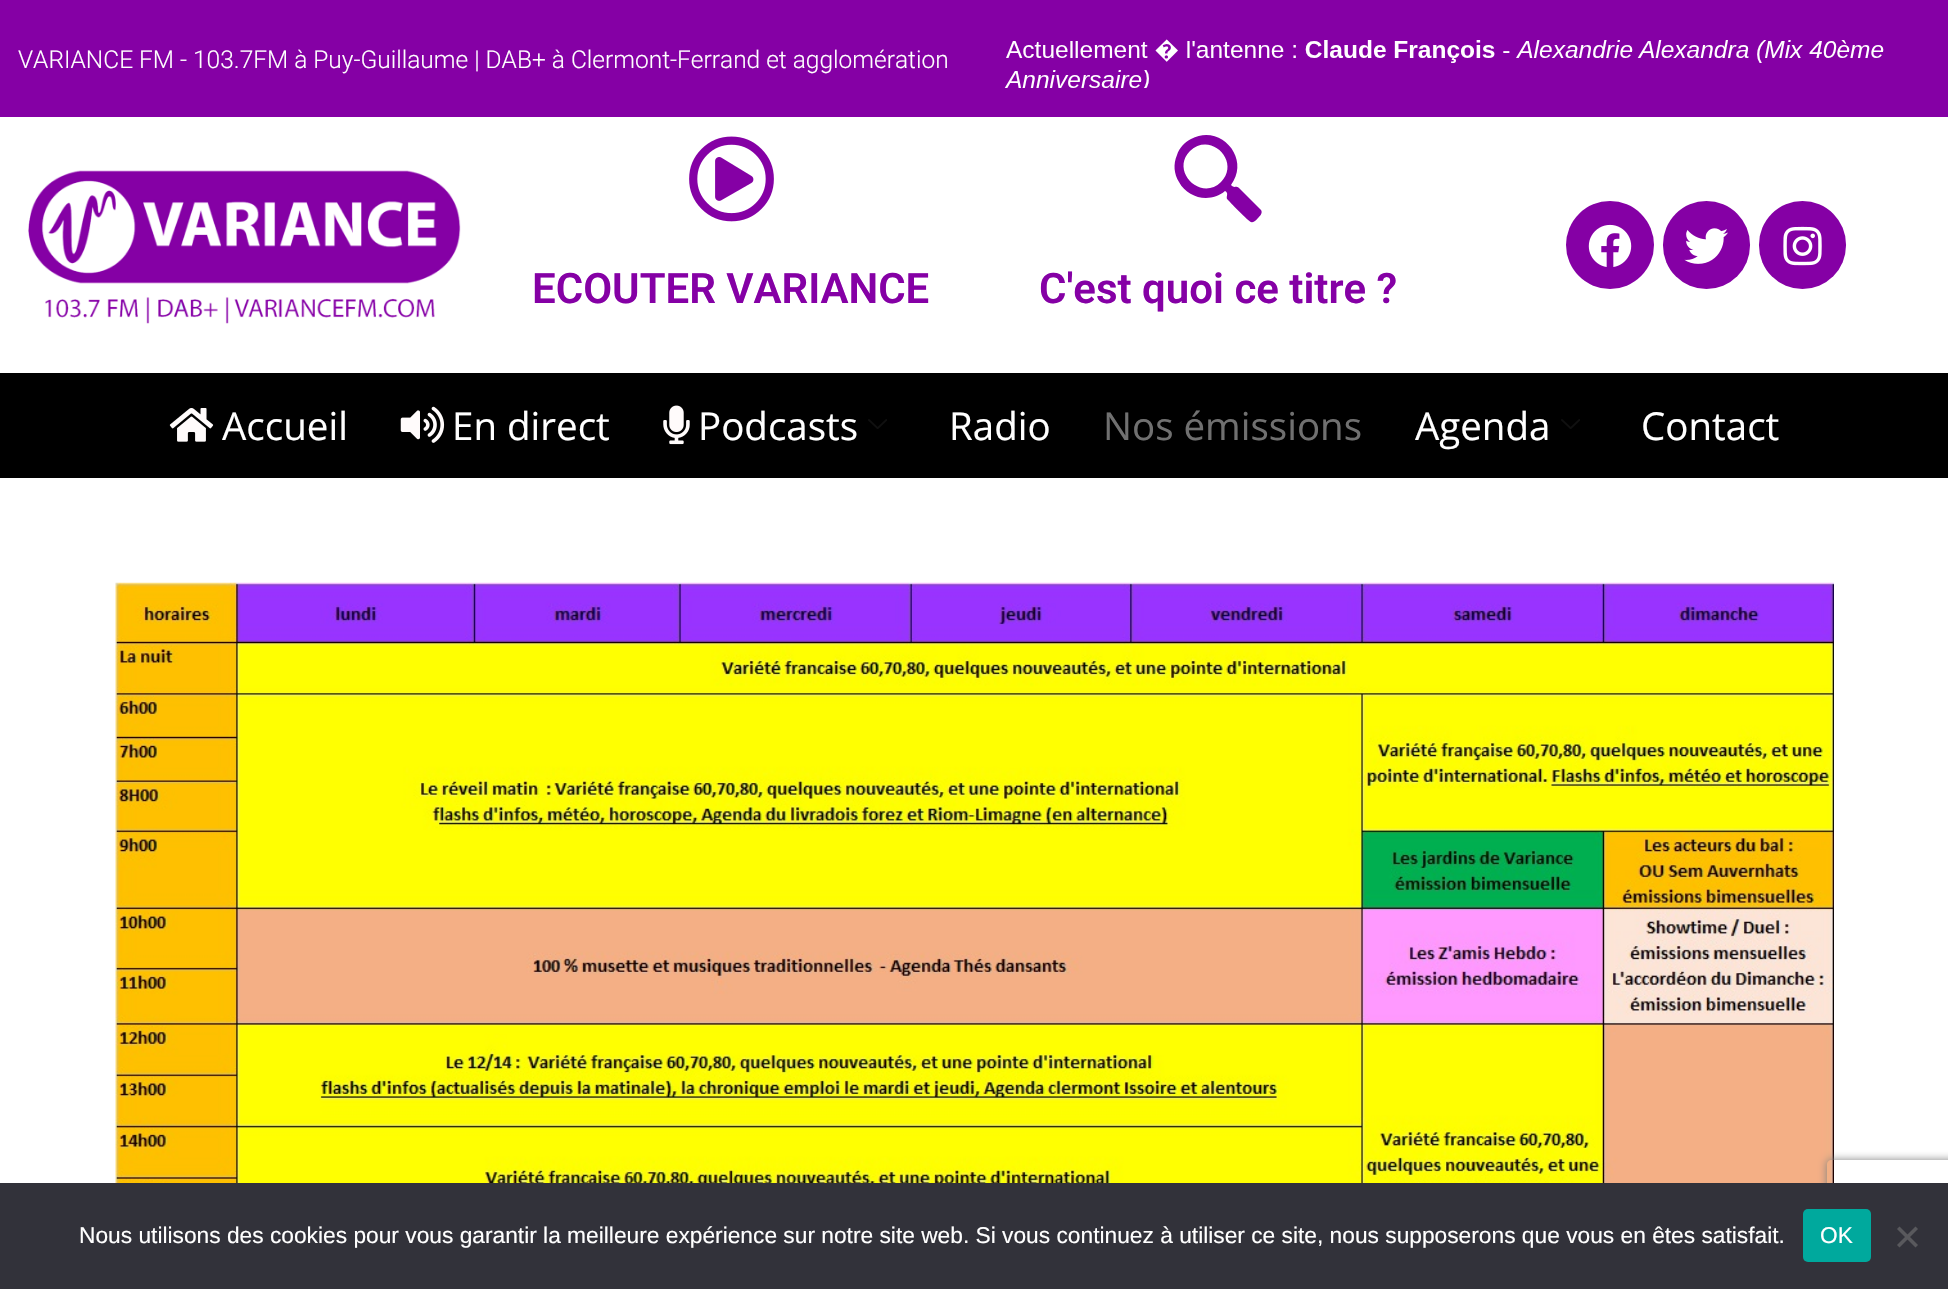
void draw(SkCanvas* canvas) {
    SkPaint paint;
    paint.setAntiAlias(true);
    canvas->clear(0xFFFFFFFF);
    paint.setColor(0xFF8500A5);
    canvas->drawRect(SkRect::MakeXYWH(0, 0, 1948, 117), paint);
    SkFont font1(fontMgr->matchFamilyStyle("Roboto", SkFontStyle(300, SkFontStyle::kNormal_Width, SkFontStyle::kUpright_Slant)), 24.5f);
    font1.setSubpixel(true);
    paint.setColor(0xFFFFFFFF);
    canvas->drawString("VARIANCE FM - 103.7FM à Puy-Guillaume | DAB+ à Clermont-Ferrand et agglomération", 18, 68, font1, paint);
    canvas->drawImageRect(SkImages::DeferredFromEncodedData(SkData::MakeFromFileName("img1.png")), SkRect::MakeXYWH(1004, 39, 880, 49), SkSamplingOptions());
    canvas->drawImageRect(SkImages::DeferredFromEncodedData(SkData::MakeFromFileName("img2.png")), SkRect::MakeXYWH(28, 170, 433, 154), SkSamplingOptions());
    canvas->drawImageRect(SkImages::DeferredFromEncodedData(SkData::MakeFromFileName("img3.png")), SkRect::MakeXYWH(689, 136, 85, 86), SkSamplingOptions());
    SkFont font2(fontMgr->matchFamilyStyle("Roboto", SkFontStyle(600, SkFontStyle::kNormal_Width, SkFontStyle::kUpright_Slant)), 42);
    font2.setSubpixel(true);
    paint.setColor(0xFF8500A5);
    canvas->drawString("ECOUTER VARIANCE", 532, 303, font2, paint);
    canvas->drawPath(SkPathBuilder().moveTo(1261, 210).lineTo(1239, 188).cubicTo(1235, 185, 1235, 189, 1231, 185).cubicTo(1251, 159, 1221, 123, 1191, 139).cubicTo(1185, 142, 1179, 148, 1177, 155).cubicTo(1173, 164, 1174, 174, 1179, 182).cubicTo(1188, 199, 1211, 203, 1225, 191).cubicTo(1229, 193, 1226, 196, 1227, 199).cubicTo(1229, 201, 1249, 222, 1251, 222).cubicTo(1254, 223, 1256, 220, 1258, 218).cubicTo(1260, 216, 1263, 213, 1261, 210).close().moveTo(1221, 182).cubicTo(1201, 202, 1170, 171, 1190, 151).cubicTo(1211, 131, 1241, 162, 1221, 182).close().detach(), paint);
    canvas->drawString("C'est quoi ce titre ?", 1039, 303, font2, paint);
    canvas->drawCircle(1610, 245, 44, paint);
    canvas->drawImageRect(SkImages::DeferredFromEncodedData(SkData::MakeFromFileName("img4.png")), SkRect::MakeXYWH(1588, 224, 44, 43), SkSamplingOptions());
    canvas->drawRoundRect(SkRect::MakeXYWH(1663, 201, 87, 88), 43.5f, 43.5f, paint);
    canvas->drawImageRect(SkImages::DeferredFromEncodedData(SkData::MakeFromFileName("img5.png")), SkRect::MakeXYWH(1684, 228, 44, 36), SkSamplingOptions());
    canvas->drawRoundRect(SkRect::MakeXYWH(1759, 201, 87, 88), 43.5f, 43.5f, paint);
    canvas->drawImageRect(SkImages::DeferredFromEncodedData(SkData::MakeFromFileName("img6.png")), SkRect::MakeXYWH(1783, 226, 39, 40), SkSamplingOptions());
    paint.setColor(0xFF000000);
    canvas->drawRect(SkRect::MakeXYWH(0, 373, 1948, 105), paint);
    canvas->drawImageRect(SkImages::DeferredFromEncodedData(SkData::MakeFromFileName("img7.png")), SkRect::MakeXYWH(169, 408, 45, 34), SkSamplingOptions());
    SkFont font3(fontMgr->matchFamilyStyle("Open Sans", SkFontStyle::Normal()), 38.5f);
    font3.setSubpixel(true);
    paint.setColor(0xFFFFFFFF);
    canvas->drawString("Accueil", 222, 440, font3, paint);
    canvas->drawImageRect(SkImages::DeferredFromEncodedData(SkData::MakeFromFileName("img8.png")), SkRect::MakeXYWH(400, 406, 45, 37), SkSamplingOptions());
    canvas->drawString("En direct", 452, 440, font3, paint);
    canvas->drawImageRect(SkImages::DeferredFromEncodedData(SkData::MakeFromFileName("img9.png")), SkRect::MakeXYWH(663, 405, 27, 40), SkSamplingOptions());
    canvas->drawString("Podcasts", 698, 440, font3, paint);
    canvas->drawImageRect(SkImages::DeferredFromEncodedData(SkData::MakeFromFileName("img10.png")), SkRect::MakeXYWH(868, 419, 19, 10), SkSamplingOptions());
    canvas->drawString("Radio", 949, 440, font3, paint);
    paint.setColor(0xFF707070);
    canvas->drawString("Nos émissions", 1103, 440, font3, paint);
    paint.setColor(0xFFFFFFFF);
    canvas->drawString("Agenda", 1415, 440, font3, paint);
    canvas->drawImageRect(SkImages::DeferredFromEncodedData(SkData::MakeFromFileName("img10.png")), SkRect::MakeXYWH(1561, 419, 19, 10), SkSamplingOptions());
    canvas->drawString("Contact", 1641, 440, font3, paint);
    canvas->drawImageRect(SkImages::DeferredFromEncodedData(SkData::MakeFromFileName("img11.png")), SkRect::MakeXYWH(115, 582, 1719, 601), SkSamplingOptions());
    canvas->save();
    canvas->clipPath(SkPathBuilder(SkPathFillType::kEvenOdd).moveTo(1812, 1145).lineTo(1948, 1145).lineTo(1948, 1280).lineTo(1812, 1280).close().moveTo(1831, 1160).lineTo(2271, 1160).cubicTo(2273, 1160, 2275, 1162, 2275, 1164).lineTo(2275, 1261).cubicTo(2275, 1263, 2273, 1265, 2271, 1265).lineTo(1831, 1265).cubicTo(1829, 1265, 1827, 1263, 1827, 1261).lineTo(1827, 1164).cubicTo(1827, 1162, 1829, 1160, 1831, 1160).close().detach(), true);
    paint.setColor(0xFF808080);
    paint.setMaskFilter(SkMaskFilter::MakeBlur(kNormal_SkBlurStyle, 4.5f));
    canvas->drawRoundRect(SkRect::MakeXYWH(1827, 1160, 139, 105), 4, 4, paint);
    paint.setMaskFilter(nullptr);
    canvas->restore();
    paint.setColor(0xFF32323A);
    canvas->drawRect(SkRect::MakeXYWH(0, 1183, 1948, 106), paint);
    SkFont font4(fontMgr->matchFamilyStyle("Liberation Sans", SkFontStyle::Normal()), 22.75f);
    font4.setSubpixel(true);
    paint.setColor(0xFFFFFFFF);
    canvas->drawString("Nous utilisons des cookies pour vous garantir la meilleure expérience sur notre site web. Si vous continuez à utiliser ce site, nous supposerons que vous en êtes satisfait.", 79, 1243, font4, paint);
    paint.setColor(0xFF00A99D);
    canvas->drawRoundRect(SkRect::MakeXYWH(1803, 1209, 68, 53), 5, 5, paint);
    paint.setColor(0xFFFFFFFF);
    canvas->drawString("OK", 1820, 1243, font4, paint);
    paint.setColor(0xFF59595D);
    canvas->drawPath(SkPathBuilder().moveTo(1915.5f, 1226.5f).lineTo(1918, 1229).lineTo(1899.5f, 1247.5f).lineTo(1897, 1245).close().detach(), paint);
    canvas->drawPath(SkPathBuilder().moveTo(1897, 1229).lineTo(1899.5f, 1226.5f).lineTo(1918, 1245).lineTo(1915.5f, 1247.5f).close().detach(), paint);
}
